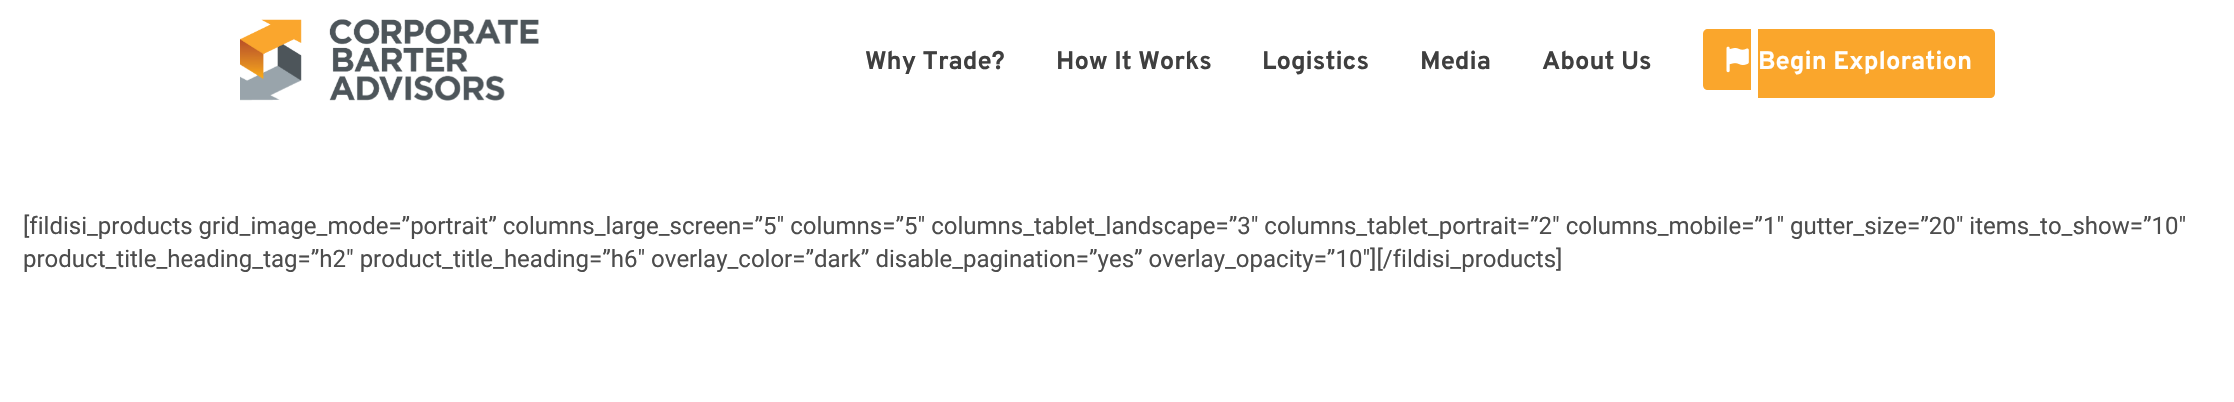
void draw(SkCanvas* canvas) {
    SkPaint paint;
    paint.setAntiAlias(true);
    canvas->clear(0xFFFFFFFF);
    canvas->drawImageRect(SkImages::DeferredFromEncodedData(SkData::MakeFromFileName("img1.png")), SkRect::MakeXYWH(240, 19, 299, 82), SkSamplingOptions());
    SkFont font1(fontMgr->matchFamilyStyle("Overpass", SkFontStyle::Bold()), 25.5f);
    font1.setSubpixel(true);
    paint.setColor(0xFF3F3F3F);
    canvas->drawString("Why Trade?", 865, 69, font1, paint);
    canvas->drawString("How It Works", 1056, 69, font1, paint);
    canvas->drawString("Logistics", 1262, 69, font1, paint);
    canvas->drawString("Media", 1420, 69, font1, paint);
    canvas->drawString("About Us", 1542, 69, font1, paint);
    paint.setColor(0xFFFAA62C);
    canvas->drawPath(SkPathBuilder().moveTo(1708, 29).lineTo(1751, 29).lineTo(1751, 90).lineTo(1708, 90).cubicTo(1705, 90, 1703, 88, 1703, 85).lineTo(1703, 34).cubicTo(1703, 31, 1705, 29, 1708, 29).close().detach(), paint);
    canvas->drawPath(SkPathBuilder().moveTo(1758, 29).lineTo(1990, 29).cubicTo(1993, 29, 1995, 31, 1995, 34).lineTo(1995, 93).cubicTo(1995, 96, 1993, 98, 1990, 98).lineTo(1758, 98).close().detach(), paint);
    canvas->drawImageRect(SkImages::DeferredFromEncodedData(SkData::MakeFromFileName("img2.png")), SkRect::MakeXYWH(1726, 46, 23, 27), SkSamplingOptions());
    paint.setColor(0xFFFFFFFF);
    canvas->drawString("Begin Exploration", 1758, 69, font1, paint);
    SkFont font2(fontMgr->matchFamilyStyle("Roboto", SkFontStyle::Normal()), 24);
    font2.setSubpixel(true);
    paint.setColor(0xFF4C4C4C);
    canvas->drawString("[fildisi_products grid_image_mode=”portrait” columns_large_screen=”5″ columns=”5″ columns_tablet_landscape=”3″ columns_tablet_portrait=”2″ columns_mobile=”1″ gutter_size=”20″ items_to_show=”10″", 23, 234, font2, paint);
    canvas->drawString("product_title_heading_tag=”h2″ product_title_heading=”h6″ overlay_color=”dark” disable_pagination=”yes” overlay_opacity=”10″][/fildisi_products]", 23, 267, font2, paint);
}
